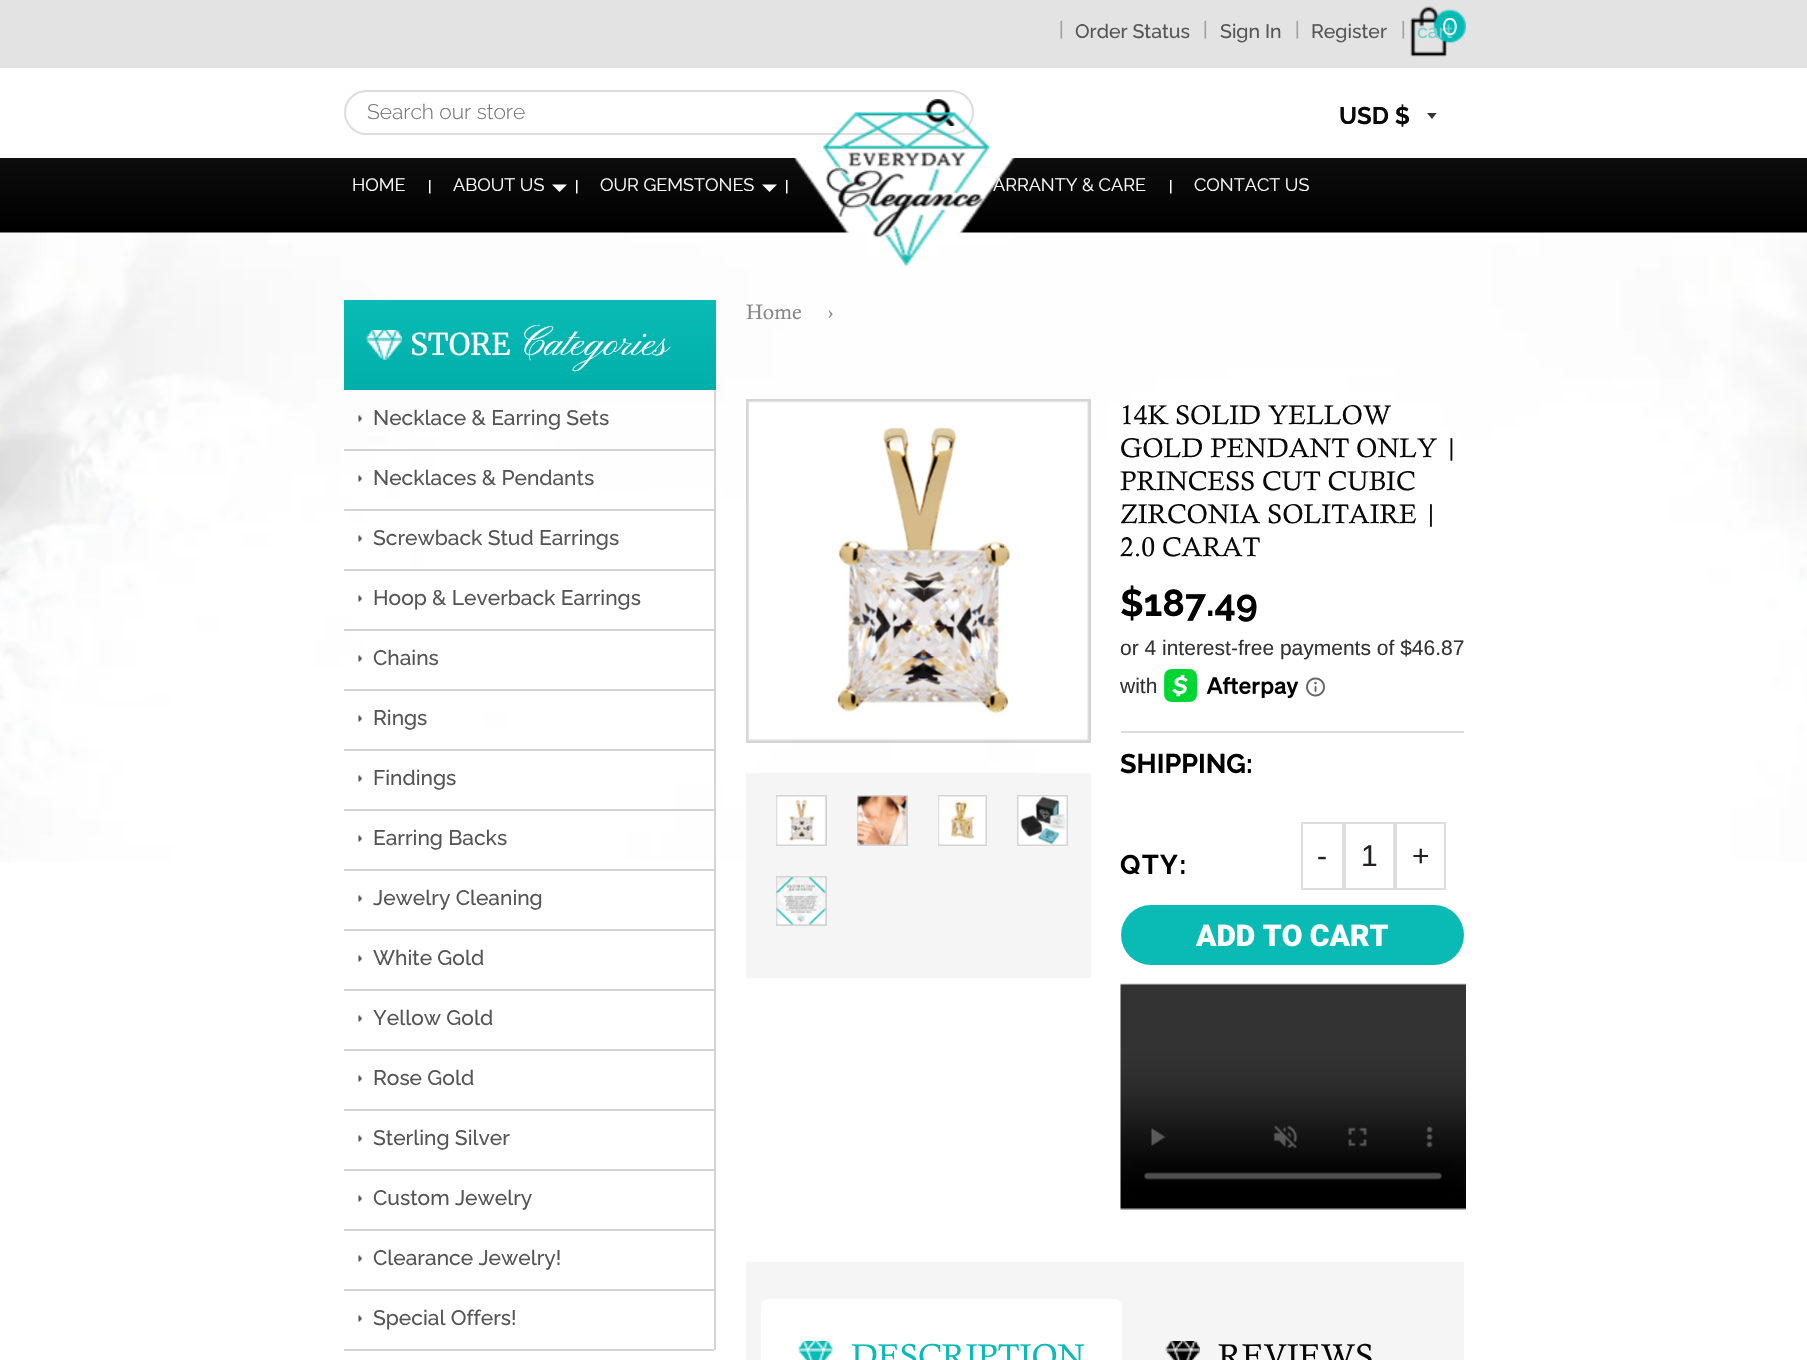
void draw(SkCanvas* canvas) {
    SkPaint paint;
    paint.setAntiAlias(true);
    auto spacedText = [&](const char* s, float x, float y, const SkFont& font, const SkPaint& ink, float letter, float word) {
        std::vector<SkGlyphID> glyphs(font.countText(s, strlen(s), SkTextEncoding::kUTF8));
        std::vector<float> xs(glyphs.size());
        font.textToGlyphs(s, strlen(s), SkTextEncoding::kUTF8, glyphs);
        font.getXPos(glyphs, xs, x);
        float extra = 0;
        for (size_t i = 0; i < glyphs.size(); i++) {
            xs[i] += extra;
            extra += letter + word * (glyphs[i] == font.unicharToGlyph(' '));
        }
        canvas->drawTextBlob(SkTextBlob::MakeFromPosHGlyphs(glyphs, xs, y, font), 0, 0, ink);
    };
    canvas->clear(0xFFFFFFFF);
    paint.setColor(0xFFE3E3E3);
    canvas->drawRect(SkRect::MakeXYWH(0, 0, 1807, 68), paint);
    SkFont font1(fontMgr->matchFamilyStyle("Raleway", SkFontStyle(500, SkFontStyle::kNormal_Width, SkFontStyle::kUpright_Slant)), 19.5f);
    font1.setSubpixel(true);
    paint.setColor(0xFFA0A0A0);
    canvas->drawString("|", 1059, 36, font1, paint);
    paint.setColor(0xFF555555);
    canvas->drawString("Order Status", 1075, 38, font1, paint);
    paint.setColor(0xFFA0A0A0);
    canvas->drawString("|", 1203, 36, font1, paint);
    paint.setColor(0xFF555555);
    canvas->drawString("Sign In", 1220, 38, font1, paint);
    paint.setColor(0xFFA0A0A0);
    canvas->drawString("|", 1295, 36, font1, paint);
    paint.setColor(0xFF555555);
    canvas->drawString("Register", 1311, 38, font1, paint);
    canvas->drawImageRect(SkImages::DeferredFromEncodedData(SkData::MakeFromFileName("img1.png")), SkRect::MakeXYWH(1410, 6, 56, 51), SkSamplingOptions());
    paint.setColor(0xFFA0A0A0);
    canvas->drawString("|", 1401, 36, font1, paint);
    paint.setColor(0xFF78D0CE);
    canvas->drawString("cart", 1417, 38, font1, paint);
    SkFont font2(fontMgr->matchFamilyStyle("Montserrat", SkFontStyle::Normal()), 24);
    font2.setSubpixel(true);
    paint.setColor(0xFFFFFFFF);
    canvas->drawString("0", 1442, 35, font2, paint);
    paint.setStyle(SkPaint::kStroke_Style);
    paint.setStrokeWidth(2);
    paint.setColor(0xFFDDDDDD);
    canvas->drawRoundRect(SkRect::MakeXYWH(345, 91, 628, 43), 21.5f, 21.5f, paint);
    SkFont font3(fontMgr->matchFamilyStyle("Raleway", SkFontStyle(300, SkFontStyle::kNormal_Width, SkFontStyle::kUpright_Slant)), 21);
    font3.setSubpixel(true);
    paint.setStyle(SkPaint::kFill_Style);
    paint.setColor(0xFF757575);
    canvas->drawString("Search our store", 367, 119, font3, paint);
    canvas->drawImageRect(SkImages::DeferredFromEncodedData(SkData::MakeFromFileName("img2.png")), SkRect::MakeXYWH(925, 99, 30, 27), SkSamplingOptions());
    {
        const SkColor colors[] = {0xFF000000, 0xFF0D0D0D};
        const float stops[] = {0, 1};
        const SkPoint ends[] = {{904, 233}, {904, 158}};
        paint.setShader(SkGradientShader::MakeLinear(ends, colors, stops, 2, SkTileMode::kClamp));
        paint.setAlpha(255);
    }
    canvas->drawRect(SkRect::MakeXYWH(0, 158, 1807, 75), paint);
    SkFont font4(fontMgr->matchFamilyStyle("Raleway", SkFontStyle::Normal()), 18);
    font4.setSubpixel(true);
    paint.setShader(nullptr);
    paint.setColor(0xFFFFFFFF);
    canvas->drawString("ARRANTY & CARE", 993, 191, font4, paint);
    canvas->drawImageRect(SkImages::DeferredFromEncodedData(SkData::MakeFromFileName("img6.png")), SkRect::MakeXYWH(0, 232, 1807, 630), SkSamplingOptions());
    canvas->drawImageRect(SkImages::DeferredFromEncodedData(SkData::MakeFromFileName("img3.png")), SkRect::MakeXYWH(794, 158, 222, 75), SkSamplingOptions());
    canvas->drawImageRect(SkImages::DeferredFromEncodedData(SkData::MakeFromFileName("img4.png")), SkRect::MakeXYWH(823, 112, 166, 154), SkSamplingOptions());
    canvas->save();
    canvas->clipRect(SkRect::MakeXYWH(1427, 113, 12, 7));
    paint.setColor(0xFF333333);
    canvas->drawPath(SkPathBuilder().moveTo(1426.5f, 112.5f).lineTo(1432, 119).lineTo(1437, 112.5f).close().detach(), paint);
    canvas->restore();
    SkFont font5(fontMgr->matchFamilyStyle("Raleway", SkFontStyle::Bold()), 24);
    font5.setSubpixel(true);
    paint.setColor(0xFF090909);
    canvas->drawString("USD $", 1339, 124, font5, paint);
    paint.setColor(0xFFFFFFFF);
    canvas->drawString("HOME", 352, 191, font4, paint);
    canvas->drawImageRect(SkImages::DeferredFromEncodedData(SkData::MakeFromFileName("img5.png")), SkRect::MakeXYWH(429, 180, 2, 14), SkSamplingOptions());
    canvas->drawString("ABOUT US", 453, 191, font4, paint);
    canvas->drawPath(SkPathBuilder().moveTo(552, 184.5f).lineTo(567, 184.5f).lineTo(559.5f, 192).close().detach(), paint);
    canvas->drawImageRect(SkImages::DeferredFromEncodedData(SkData::MakeFromFileName("img5.png")), SkRect::MakeXYWH(576, 180, 2, 14), SkSamplingOptions());
    canvas->drawString("OUR GEMSTONES", 600, 191, font4, paint);
    canvas->drawPath(SkPathBuilder().moveTo(762, 184.5f).lineTo(777, 184.5f).lineTo(769.5f, 192).close().detach(), paint);
    canvas->drawImageRect(SkImages::DeferredFromEncodedData(SkData::MakeFromFileName("img5.png")), SkRect::MakeXYWH(786, 180, 2, 14), SkSamplingOptions());
    canvas->drawImageRect(SkImages::DeferredFromEncodedData(SkData::MakeFromFileName("img5.png")), SkRect::MakeXYWH(1170, 180, 2, 14), SkSamplingOptions());
    canvas->drawString("CONTACT US", 1194, 191, font4, paint);
    {
        const SkColor colors[] = {0xFF00AFAA, 0xFF0ABAB5};
        const float stops[] = {0, 1};
        const SkPoint ends[] = {{530, 390}, {530, 300}};
        paint.setShader(SkGradientShader::MakeLinear(ends, colors, stops, 2, SkTileMode::kClamp));
        paint.setAlpha(255);
    }
    canvas->drawRect(SkRect::MakeXYWH(344, 300, 372, 90), paint);
    canvas->drawImageRect(SkImages::DeferredFromEncodedData(SkData::MakeFromFileName("img7.png")), SkRect::MakeXYWH(366, 330, 36, 30), SkSamplingOptions());
    SkFont font6(fontMgr->matchFamilyStyle("Merriweather", SkFontStyle::Normal()), 30);
    font6.setSubpixel(true);
    paint.setShader(nullptr);
    paint.setColor(0xFFFFFFFF);
    canvas->drawString("STORE", 410, 355, font6, paint);
    SkFont font7(fontMgr->matchFamilyStyle("Pinyon Script", SkFontStyle::Normal()), 42);
    font7.setSubpixel(true);
    canvas->drawString("Categories", 518, 355, font7, paint);
    paint.setColor(0xFFD4D4D4);
    canvas->drawRect(SkRect::MakeXYWH(714, 390, 2, 960), paint);
    canvas->drawRect(SkRect::MakeXYWH(344, 449, 370, 2), paint);
    canvas->drawImageRect(SkImages::DeferredFromEncodedData(SkData::MakeFromFileName("img8.png")), SkRect::MakeXYWH(358, 415, 4, 7), SkSamplingOptions());
    SkFont font8(fontMgr->matchFamilyStyle("Raleway", SkFontStyle(500, SkFontStyle::kNormal_Width, SkFontStyle::kUpright_Slant)), 21);
    font8.setSubpixel(true);
    paint.setColor(0xFF555555);
    canvas->drawString("Necklace & Earring Sets", 373, 425, font8, paint);
    paint.setColor(0xFFD4D4D4);
    canvas->drawRect(SkRect::MakeXYWH(344, 509, 370, 2), paint);
    canvas->drawImageRect(SkImages::DeferredFromEncodedData(SkData::MakeFromFileName("img8.png")), SkRect::MakeXYWH(358, 475, 4, 7), SkSamplingOptions());
    paint.setColor(0xFF555555);
    canvas->drawString("Necklaces & Pendants", 373, 485, font8, paint);
    paint.setColor(0xFFD4D4D4);
    canvas->drawRect(SkRect::MakeXYWH(344, 569, 370, 2), paint);
    canvas->drawImageRect(SkImages::DeferredFromEncodedData(SkData::MakeFromFileName("img8.png")), SkRect::MakeXYWH(358, 535, 4, 7), SkSamplingOptions());
    paint.setColor(0xFF555555);
    canvas->drawString("Screwback Stud Earrings", 373, 545, font8, paint);
    paint.setColor(0xFFD4D4D4);
    canvas->drawRect(SkRect::MakeXYWH(344, 629, 370, 2), paint);
    canvas->drawImageRect(SkImages::DeferredFromEncodedData(SkData::MakeFromFileName("img8.png")), SkRect::MakeXYWH(358, 595, 4, 7), SkSamplingOptions());
    paint.setColor(0xFF555555);
    canvas->drawString("Hoop & Leverback Earrings", 373, 605, font8, paint);
    paint.setColor(0xFFD4D4D4);
    canvas->drawRect(SkRect::MakeXYWH(344, 689, 370, 2), paint);
    canvas->drawImageRect(SkImages::DeferredFromEncodedData(SkData::MakeFromFileName("img8.png")), SkRect::MakeXYWH(358, 655, 4, 7), SkSamplingOptions());
    paint.setColor(0xFF555555);
    canvas->drawString("Chains", 373, 665, font8, paint);
    paint.setColor(0xFFD4D4D4);
    canvas->drawRect(SkRect::MakeXYWH(344, 749, 370, 2), paint);
    canvas->drawImageRect(SkImages::DeferredFromEncodedData(SkData::MakeFromFileName("img8.png")), SkRect::MakeXYWH(358, 715, 4, 7), SkSamplingOptions());
    paint.setColor(0xFF555555);
    canvas->drawString("Rings", 373, 725, font8, paint);
    paint.setColor(0xFFD4D4D4);
    canvas->drawRect(SkRect::MakeXYWH(344, 809, 370, 2), paint);
    canvas->drawImageRect(SkImages::DeferredFromEncodedData(SkData::MakeFromFileName("img8.png")), SkRect::MakeXYWH(358, 775, 4, 7), SkSamplingOptions());
    paint.setColor(0xFF555555);
    canvas->drawString("Findings", 373, 785, font8, paint);
    paint.setColor(0xFFD4D4D4);
    canvas->drawRect(SkRect::MakeXYWH(344, 869, 370, 2), paint);
    canvas->drawImageRect(SkImages::DeferredFromEncodedData(SkData::MakeFromFileName("img8.png")), SkRect::MakeXYWH(358, 835, 4, 7), SkSamplingOptions());
    paint.setColor(0xFF555555);
    canvas->drawString("Earring Backs", 373, 845, font8, paint);
    paint.setColor(0xFFD4D4D4);
    canvas->drawRect(SkRect::MakeXYWH(344, 929, 370, 2), paint);
    canvas->drawImageRect(SkImages::DeferredFromEncodedData(SkData::MakeFromFileName("img8.png")), SkRect::MakeXYWH(358, 895, 4, 7), SkSamplingOptions());
    paint.setColor(0xFF555555);
    canvas->drawString("Jewelry Cleaning", 373, 905, font8, paint);
    paint.setColor(0xFFD4D4D4);
    canvas->drawRect(SkRect::MakeXYWH(344, 989, 370, 2), paint);
    canvas->drawImageRect(SkImages::DeferredFromEncodedData(SkData::MakeFromFileName("img8.png")), SkRect::MakeXYWH(358, 955, 4, 7), SkSamplingOptions());
    paint.setColor(0xFF555555);
    canvas->drawString("White Gold", 373, 965, font8, paint);
    paint.setColor(0xFFD4D4D4);
    canvas->drawRect(SkRect::MakeXYWH(344, 1049, 370, 2), paint);
    canvas->drawImageRect(SkImages::DeferredFromEncodedData(SkData::MakeFromFileName("img8.png")), SkRect::MakeXYWH(358, 1015, 4, 7), SkSamplingOptions());
    paint.setColor(0xFF555555);
    canvas->drawString("Yellow Gold", 373, 1025, font8, paint);
    paint.setColor(0xFFD4D4D4);
    canvas->drawRect(SkRect::MakeXYWH(344, 1109, 370, 2), paint);
    canvas->drawImageRect(SkImages::DeferredFromEncodedData(SkData::MakeFromFileName("img8.png")), SkRect::MakeXYWH(358, 1075, 4, 7), SkSamplingOptions());
    paint.setColor(0xFF555555);
    canvas->drawString("Rose Gold", 373, 1085, font8, paint);
    paint.setColor(0xFFD4D4D4);
    canvas->drawRect(SkRect::MakeXYWH(344, 1169, 370, 2), paint);
    canvas->drawImageRect(SkImages::DeferredFromEncodedData(SkData::MakeFromFileName("img8.png")), SkRect::MakeXYWH(358, 1135, 4, 7), SkSamplingOptions());
    paint.setColor(0xFF555555);
    canvas->drawString("Sterling Silver", 373, 1145, font8, paint);
    paint.setColor(0xFFD4D4D4);
    canvas->drawRect(SkRect::MakeXYWH(344, 1229, 370, 2), paint);
    canvas->drawImageRect(SkImages::DeferredFromEncodedData(SkData::MakeFromFileName("img8.png")), SkRect::MakeXYWH(358, 1195, 4, 7), SkSamplingOptions());
    paint.setColor(0xFF555555);
    canvas->drawString("Custom Jewelry", 373, 1205, font8, paint);
    paint.setColor(0xFFD4D4D4);
    canvas->drawRect(SkRect::MakeXYWH(344, 1289, 370, 2), paint);
    canvas->drawImageRect(SkImages::DeferredFromEncodedData(SkData::MakeFromFileName("img8.png")), SkRect::MakeXYWH(358, 1255, 4, 7), SkSamplingOptions());
    paint.setColor(0xFF555555);
    canvas->drawString("Clearance Jewelry!", 373, 1265, font8, paint);
    paint.setColor(0xFFD4D4D4);
    canvas->drawRect(SkRect::MakeXYWH(344, 1349, 370, 2), paint);
    canvas->drawImageRect(SkImages::DeferredFromEncodedData(SkData::MakeFromFileName("img8.png")), SkRect::MakeXYWH(358, 1315, 4, 7), SkSamplingOptions());
    paint.setColor(0xFF555555);
    canvas->drawString("Special Offers!", 373, 1325, font8, paint);
    SkFont font9(fontMgr->matchFamilyStyle("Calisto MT", SkFontStyle::Normal()), 21);
    font9.setSubpixel(true);
    paint.setColor(0xFF888888);
    canvas->drawString("Home", 746, 319, font9, paint);
    canvas->drawString("›", 828, 319, font9, paint);
    paint.setStyle(SkPaint::kStroke_Style);
    paint.setColor(0xFFD4D4D4);
    canvas->drawRect(SkRect::MakeXYWH(747, 400, 343, 342), paint);
    paint.setColor(0xFFDDDDDD);
    canvas->drawRect(SkRect::MakeXYWH(748, 402, 340, 338), paint);
    canvas->drawImageRect(SkImages::DeferredFromEncodedData(SkData::MakeFromFileName("img9.png")), SkRect::MakeXYWH(749, 401, 339, 339), SkSamplingOptions());
    paint.setStyle(SkPaint::kFill_Style);
    paint.setColor(0xFFF5F5F5);
    canvas->drawRect(SkRect::MakeXYWH(746, 773, 345, 205), paint);
    paint.setStyle(SkPaint::kStroke_Style);
    paint.setColor(0xFFD4D4D4);
    canvas->drawRect(SkRect::MakeXYWH(777, 796, 49, 49), paint);
    canvas->drawImageRect(SkImages::DeferredFromEncodedData(SkData::MakeFromFileName("img10.png")), SkRect::MakeXYWH(776, 796, 50, 49), SkSamplingOptions());
    canvas->drawRect(SkRect::MakeXYWH(858, 796, 49, 49), paint);
    canvas->drawImageRect(SkImages::DeferredFromEncodedData(SkData::MakeFromFileName("img11.png")), SkRect::MakeXYWH(857, 796, 50, 49), SkSamplingOptions());
    canvas->drawRect(SkRect::MakeXYWH(939, 796, 47, 49), paint);
    canvas->drawImageRect(SkImages::DeferredFromEncodedData(SkData::MakeFromFileName("img12.png")), SkRect::MakeXYWH(938, 796, 48, 49), SkSamplingOptions());
    canvas->drawRect(SkRect::MakeXYWH(1018, 796, 49, 49), paint);
    canvas->drawImageRect(SkImages::DeferredFromEncodedData(SkData::MakeFromFileName("img13.png")), SkRect::MakeXYWH(1018, 796, 49, 49), SkSamplingOptions());
    canvas->drawRect(SkRect::MakeXYWH(777, 877, 49, 48), paint);
    canvas->drawImageRect(SkImages::DeferredFromEncodedData(SkData::MakeFromFileName("img14.png")), SkRect::MakeXYWH(776, 877, 50, 48), SkSamplingOptions());
    SkFont font10(fontMgr->matchFamilyStyle("Calisto MT", SkFontStyle::Normal()), 27);
    font10.setSubpixel(true);
    paint.setStyle(SkPaint::kFill_Style);
    paint.setColor(0xFF090909);
    canvas->drawString("14K SOLID YELLOW", 1120, 424, font10, paint);
    canvas->drawString("GOLD PENDANT ONLY |", 1120, 457, font10, paint);
    canvas->drawString("PRINCESS CUT CUBIC", 1120, 490, font10, paint);
    canvas->drawString("ZIRCONIA SOLITAIRE |", 1120, 523, font10, paint);
    canvas->drawString("2.0 CARAT", 1120, 556, font10, paint);
    paint.setColor(0xFFDDDDDD);
    canvas->drawRect(SkRect::MakeXYWH(1121, 731, 343, 2), paint);
    SkFont font11(fontMgr->matchFamilyStyle("Raleway", SkFontStyle::Bold()), 37.5f);
    font11.setSubpixel(true);
    paint.setColor(0xFF000000);
    canvas->drawString("$187.49", 1120, 616, font11, paint);
    SkFont font12(fontMgr->matchFamilyStyle("Liberation Sans", SkFontStyle::Normal()), 21);
    font12.setSubpixel(true);
    paint.setColor(0xFF333333);
    canvas->drawString("or 4 interest-free payments of $46.87", 1120, 655, font12, paint);
    canvas->drawString("with", 1120, 693, font12, paint);
    canvas->drawImageRect(SkImages::DeferredFromEncodedData(SkData::MakeFromFileName("img15.png")), SkRect::MakeXYWH(1164, 669, 135, 33), SkSamplingOptions());
    canvas->drawImageRect(SkImages::DeferredFromEncodedData(SkData::MakeFromFileName("img16.png")), SkRect::MakeXYWH(1306, 677, 19, 20), SkSamplingOptions());
    SkFont font13(fontMgr->matchFamilyStyle("Raleway", SkFontStyle::Bold()), 27);
    font13.setSubpixel(true);
    paint.setColor(0xFF000000);
    canvas->drawString("SHIPPING:", 1120, 773, font13, paint);
    spacedText("QTY:", 1120, 874, font13, paint, 1.5f, 0);
    paint.setStyle(SkPaint::kStroke_Style);
    paint.setColor(0xFFDDDDDD);
    canvas->drawRect(SkRect::MakeXYWH(1302, 823, 41, 66), paint);
    SkFont font14(fontMgr->matchFamilyStyle("Liberation Sans", SkFontStyle::Normal()), 30);
    font14.setSubpixel(true);
    paint.setStyle(SkPaint::kFill_Style);
    paint.setColor(0xFF231F20);
    canvas->drawString("-", 1317, 866, font14, paint);
    paint.setStyle(SkPaint::kStroke_Style);
    paint.setColor(0xFFDDDDDD);
    canvas->drawRect(SkRect::MakeXYWH(1345, 823, 49, 66), paint);
    paint.setStyle(SkPaint::kFill_Style);
    paint.setColor(0xFF231F20);
    canvas->drawString("1", 1361, 866, font14, paint);
    paint.setStyle(SkPaint::kStroke_Style);
    paint.setColor(0xFFDDDDDD);
    canvas->drawRect(SkRect::MakeXYWH(1396, 823, 49, 66), paint);
    paint.setStyle(SkPaint::kFill_Style);
    paint.setColor(0xFF231F20);
    canvas->drawString("+", 1412, 866, font14, paint);
    paint.setColor(0xFF0ABAB5);
    canvas->drawRoundRect(SkRect::MakeXYWH(1121, 905, 343, 60), 30, 30, paint);
    SkFont font15(fontMgr->matchFamilyStyle("Roboto", SkFontStyle(900, SkFontStyle::kNormal_Width, SkFontStyle::kUpright_Slant)), 30);
    font15.setSubpixel(true);
    paint.setColor(0xFFFFFFFF);
    canvas->drawString("ADD TO CART", 1196, 946, font15, paint);
    canvas->drawImageRect(SkImages::DeferredFromEncodedData(SkData::MakeFromFileName("img17.png")), SkRect::MakeXYWH(1120, 983, 346, 227), SkSamplingOptions());
    paint.setColor(0xFFF5F5F5);
    canvas->drawRect(SkRect::MakeXYWH(746, 1262, 718, 98), paint);
    paint.setColor(0xFFFFFFFF);
    canvas->drawPath(SkPathBuilder().moveTo(769, 1299).lineTo(1114, 1299).cubicTo(1118.5f, 1299, 1122, 1302.5f, 1122, 1307).lineTo(1122, 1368).lineTo(761, 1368).lineTo(761, 1307).cubicTo(761, 1302.5f, 764.5f, 1299, 769, 1299).close().detach(), paint);
    canvas->drawImageRect(SkImages::DeferredFromEncodedData(SkData::MakeFromFileName("img18.png")), SkRect::MakeXYWH(798, 1341, 35, 19), SkSamplingOptions());
    SkFont font16(fontMgr->matchFamilyStyle("Calisto MT", SkFontStyle::Normal()), 33);
    font16.setSubpixel(true);
    paint.setColor(0xFF0ABAB5);
    canvas->drawString("DESCRIPTION", 851, 1367, font16, paint);
    canvas->drawImageRect(SkImages::DeferredFromEncodedData(SkData::MakeFromFileName("img19.png")), SkRect::MakeXYWH(1165, 1341, 35, 19), SkSamplingOptions());
    paint.setColor(0xFF090909);
    canvas->drawString("REVIEWS", 1218, 1367, font16, paint);
}
